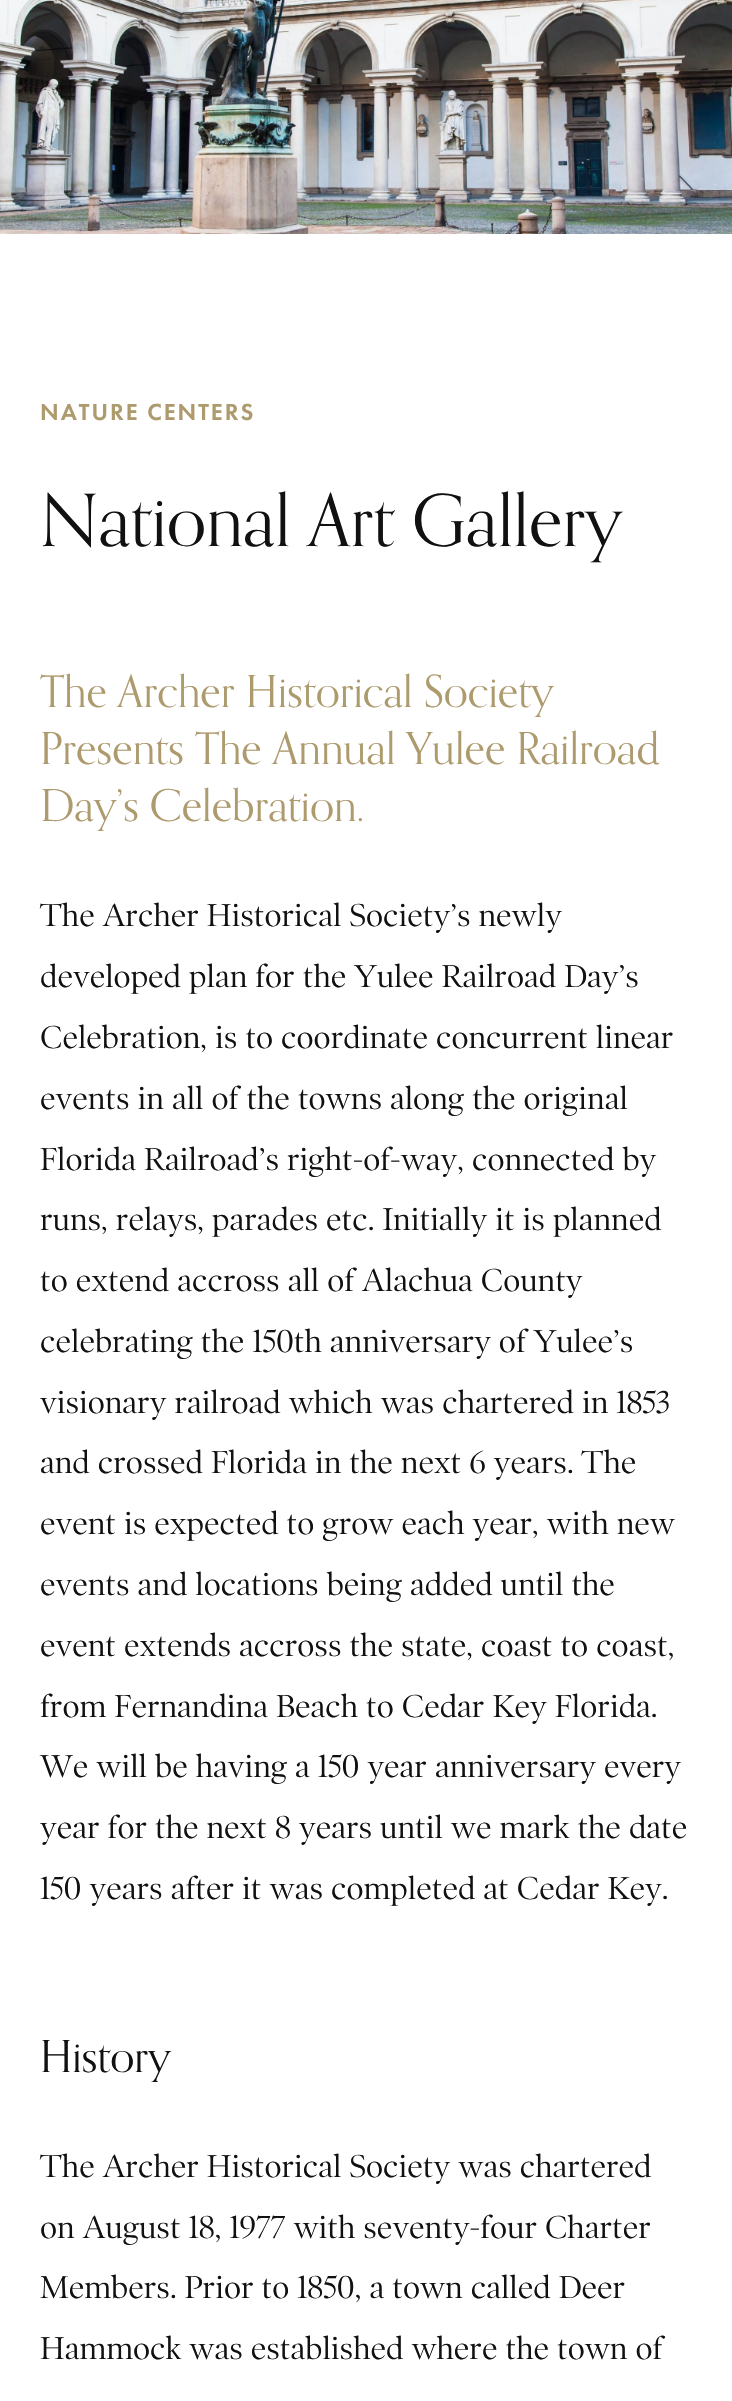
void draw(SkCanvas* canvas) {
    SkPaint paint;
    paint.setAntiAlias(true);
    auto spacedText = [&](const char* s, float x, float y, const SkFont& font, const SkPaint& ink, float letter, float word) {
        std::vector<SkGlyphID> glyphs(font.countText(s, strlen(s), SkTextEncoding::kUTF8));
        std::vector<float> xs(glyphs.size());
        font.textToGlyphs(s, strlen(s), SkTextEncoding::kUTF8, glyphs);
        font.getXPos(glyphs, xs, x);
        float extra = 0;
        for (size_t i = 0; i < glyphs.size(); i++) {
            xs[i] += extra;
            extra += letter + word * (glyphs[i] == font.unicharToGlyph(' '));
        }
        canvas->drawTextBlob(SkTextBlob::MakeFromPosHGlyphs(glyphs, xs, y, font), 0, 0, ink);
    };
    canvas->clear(0xFFFFFFFF);
    canvas->drawImageRect(SkImages::DeferredFromEncodedData(SkData::MakeFromFileName("img1.png")), SkRect::MakeXYWH(0, 0, 732, 234), SkSamplingOptions());
    SkFont font1(fontMgr->matchFamilyStyle("Futura PT", SkFontStyle(500, SkFontStyle::kNormal_Width, SkFontStyle::kUpright_Slant)), 24);
    font1.setSubpixel(true);
    paint.setColor(0xFFAD9A6D);
    spacedText("NATURE CENTERS", 40, 420, font1, paint, 2, 0);
    SkFont font2(fontMgr->matchFamilyStyle("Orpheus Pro", SkFontStyle::Normal()), 72);
    font2.setSubpixel(true);
    paint.setColor(0xFF111111);
    canvas->drawString("National Art Gallery", 40, 546, font2, paint);
    SkFont font3(fontMgr->matchFamilyStyle("Orpheus Pro", SkFontStyle::Normal()), 44);
    font3.setSubpixel(true);
    paint.setColor(0xFFAD9A6D);
    canvas->drawString("The Archer Historical Society", 40, 707, font3, paint);
    canvas->drawString("Presents The Annual Yulee Railroad", 40, 764, font3, paint);
    canvas->drawString("Day’s Celebration.", 40, 821, font3, paint);
    SkFont font4(fontMgr->matchFamilyStyle("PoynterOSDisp", SkFontStyle::Normal()), 32);
    font4.setSubpixel(true);
    paint.setColor(0xFF111111);
    canvas->drawString("The Archer Historical Society’s newly", 40, 926, font4, paint);
    canvas->drawString("developed plan for the Yulee Railroad Day’s", 40, 987, font4, paint);
    canvas->drawString("Celebration, is to coordinate concurrent linear", 40, 1048, font4, paint);
    canvas->drawString("events in all of the towns along the original", 40, 1109, font4, paint);
    canvas->drawString("Florida Railroad’s right-of-way, connected by", 40, 1170, font4, paint);
    canvas->drawString("runs, relays, parades etc. Initially it is planned", 40, 1230, font4, paint);
    canvas->drawString("to extend accross all of Alachua County", 40, 1291, font4, paint);
    canvas->drawString("celebrating the 150th anniversary of Yulee’s", 40, 1352, font4, paint);
    canvas->drawString("visionary railroad which was chartered in 1853", 40, 1413, font4, paint);
    canvas->drawString("and crossed Florida in the next 6 years. The", 40, 1473, font4, paint);
    canvas->drawString("event is expected to grow each year, with new", 40, 1534, font4, paint);
    canvas->drawString("events and locations being added until the", 40, 1595, font4, paint);
    canvas->drawString("event extends accross the state, coast to coast,", 40, 1656, font4, paint);
    canvas->drawString("from Fernandina Beach to Cedar Key Florida.", 40, 1717, font4, paint);
    canvas->drawString("We will be having a 150 year anniversary every", 40, 1777, font4, paint);
    canvas->drawString("year for the next 8 years until we mark the date", 40, 1838, font4, paint);
    canvas->drawString("150 years after it was completed at Cedar Key.", 40, 1899, font4, paint);
    canvas->drawString("History", 40, 2072, font3, paint);
    canvas->drawString("The Archer Historical Society was chartered", 40, 2177, font4, paint);
    canvas->drawString("on August 18, 1977 with seventy-four Charter", 40, 2238, font4, paint);
    canvas->drawString("Members. Prior to 1850, a town called Deer", 40, 2298, font4, paint);
    canvas->drawString("Hammock was established where the town of", 40, 2359, font4, paint);
}
